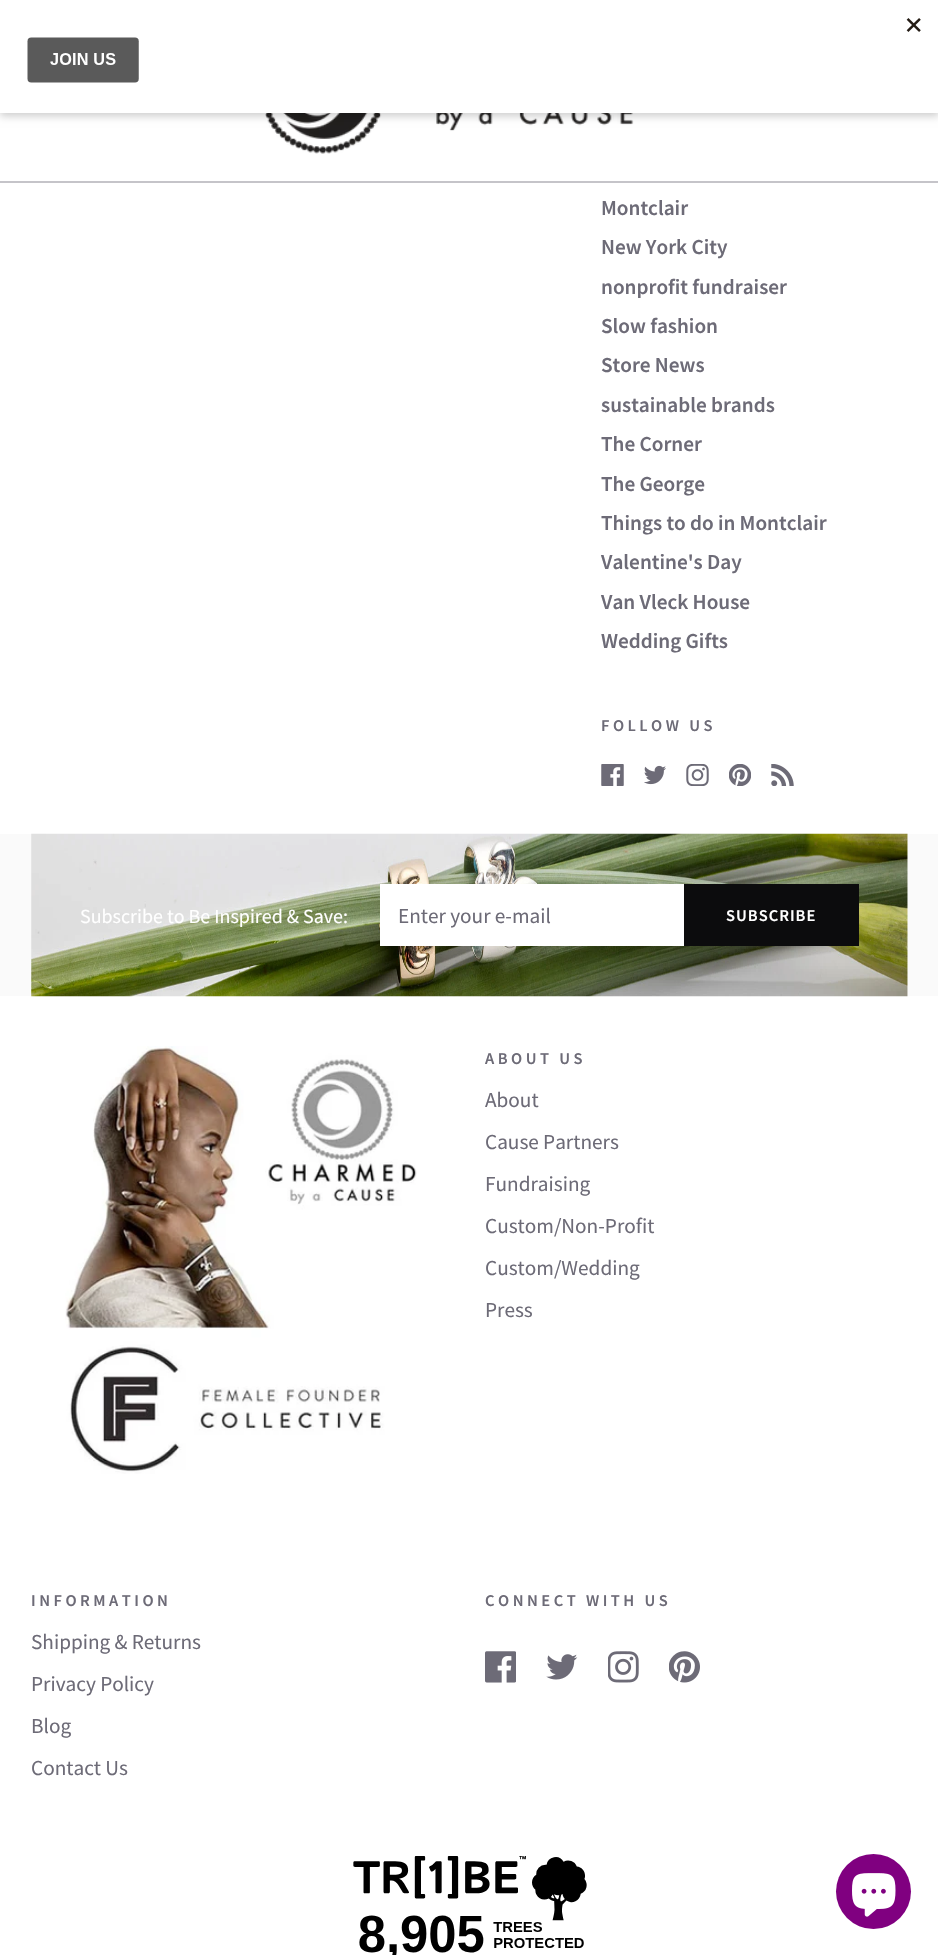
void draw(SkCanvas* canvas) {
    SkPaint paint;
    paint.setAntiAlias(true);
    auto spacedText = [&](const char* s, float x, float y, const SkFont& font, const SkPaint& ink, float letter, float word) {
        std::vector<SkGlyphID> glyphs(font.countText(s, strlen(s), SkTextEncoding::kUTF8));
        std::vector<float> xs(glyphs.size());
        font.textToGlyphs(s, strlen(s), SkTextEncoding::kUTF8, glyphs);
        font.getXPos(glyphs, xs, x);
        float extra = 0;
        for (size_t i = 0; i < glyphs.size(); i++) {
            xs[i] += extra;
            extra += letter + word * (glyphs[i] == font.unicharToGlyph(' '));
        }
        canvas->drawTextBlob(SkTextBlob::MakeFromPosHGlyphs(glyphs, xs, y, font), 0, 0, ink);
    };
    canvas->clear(0xFFFFFFFF);
    canvas->drawImageRect(SkImages::DeferredFromEncodedData(SkData::MakeFromFileName("img2.png")), SkRect::MakeXYWH(265, 113, 369, 41), SkSamplingOptions());
    paint.setColor(0x33000000);
    paint.setMaskFilter(SkMaskFilter::MakeBlur(kNormal_SkBlurStyle, 4));
    canvas->drawRect(SkRect::MakeXYWH(0, 4, 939, 112), paint);
    paint.setMaskFilter(nullptr);
    paint.setColor(0xFFFFFFFF);
    canvas->drawRect(SkRect::MakeXYWH(0, 0, 938, 113), paint);
    canvas->drawImageRect(SkImages::DeferredFromEncodedData(SkData::MakeFromFileName("img1.png")), SkRect::MakeXYWH(27, 18, 894, 65), SkSamplingOptions());
    paint.setColor(0xFFC5C4C9);
    canvas->drawPath(SkPathBuilder().moveTo(0, 181).lineTo(0, 183).lineTo(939, 183).lineTo(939, 1).lineTo(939, 181).close().detach(), paint);
    SkFont font1(fontMgr->matchFamilyStyle("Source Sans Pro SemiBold", SkFontStyle(600, SkFontStyle::kNormal_Width, SkFontStyle::kUpright_Slant)), 21.25f);
    font1.setSubpixel(true);
    paint.setColor(0xFF6D6B77);
    canvas->drawString("Montclair", 601, 215, font1, paint);
    canvas->drawString("New York City", 601, 254, font1, paint);
    canvas->drawString("nonprofit fundraiser", 601, 294, font1, paint);
    canvas->drawString("Slow fashion", 601, 333, font1, paint);
    canvas->drawString("Store News", 601, 372, font1, paint);
    canvas->drawString("sustainable brands", 601, 412, font1, paint);
    canvas->drawString("The Corner", 601, 451, font1, paint);
    canvas->drawString("The George", 601, 491, font1, paint);
    canvas->drawString("Things to do in Montclair", 601, 530, font1, paint);
    canvas->drawString("Valentine's Day", 601, 569, font1, paint);
    canvas->drawString("Van Vleck House", 601, 609, font1, paint);
    canvas->drawString("Wedding Gifts", 601, 648, font1, paint);
    SkFont font2(fontMgr->matchFamilyStyle("Source Sans Pro SemiBold", SkFontStyle(600, SkFontStyle::kNormal_Width, SkFontStyle::kUpright_Slant)), 16.5f);
    font2.setSubpixel(true);
    spacedText("FOLLOW US", 601, 731, font2, paint, 3.5f, 0);
    canvas->drawImageRect(SkImages::DeferredFromEncodedData(SkData::MakeFromFileName("img3.png")), SkRect::MakeXYWH(601, 764, 23, 22), SkSamplingOptions());
    canvas->drawImageRect(SkImages::DeferredFromEncodedData(SkData::MakeFromFileName("img4.png")), SkRect::MakeXYWH(644, 765, 22, 20), SkSamplingOptions());
    canvas->drawImageRect(SkImages::DeferredFromEncodedData(SkData::MakeFromFileName("img5.png")), SkRect::MakeXYWH(686, 764, 23, 22), SkSamplingOptions());
    canvas->drawImageRect(SkImages::DeferredFromEncodedData(SkData::MakeFromFileName("img6.png")), SkRect::MakeXYWH(729, 764, 22, 22), SkSamplingOptions());
    canvas->drawImageRect(SkImages::DeferredFromEncodedData(SkData::MakeFromFileName("img7.png")), SkRect::MakeXYWH(771, 764, 23, 22), SkSamplingOptions());
    paint.setColor(0xFFFAFAFA);
    canvas->drawRect(SkRect::MakeXYWH(0, 834, 938, 162), paint);
    canvas->drawImageRect(SkImages::DeferredFromEncodedData(SkData::MakeFromFileName("img8.png")), SkRect::MakeXYWH(31, 833, 877, 164), SkSamplingOptions());
    SkFont font3(fontMgr->matchFamilyStyle("Source Sans Pro", SkFontStyle::Normal()), 20);
    font3.setSubpixel(true);
    paint.setColor(0xFFFFFFFF);
    canvas->drawString("Subscribe to Be Inspired & Save:", 80, 923, font3, paint);
    canvas->drawRect(SkRect::MakeXYWH(380, 884, 304, 62), paint);
    SkFont font4(fontMgr->matchFamilyStyle("Source Sans Pro", SkFontStyle::Normal()), 21.25f);
    font4.setSubpixel(true);
    paint.setColor(0xFF6D6B77);
    canvas->drawString("Enter your e-mail", 398, 923, font4, paint);
    paint.setColor(0xFF0C0C0D);
    canvas->drawRect(SkRect::MakeXYWH(684, 884, 175, 62), paint);
    paint.setColor(0xFFFFFFFF);
    spacedText("SUBSCRIBE", 726, 921, font2, paint, 1, 0);
    canvas->drawImageRect(SkImages::DeferredFromEncodedData(SkData::MakeFromFileName("img9.png")), SkRect::MakeXYWH(65, 1046, 352, 428), SkSamplingOptions());
    paint.setColor(0xFF6D6B77);
    spacedText("ABOUT US", 485, 1064, font2, paint, 3.5f, 0);
    canvas->drawString("About", 485, 1107, font4, paint);
    canvas->drawString("Cause Partners", 485, 1149, font4, paint);
    canvas->drawString("Fundraising", 485, 1191, font4, paint);
    canvas->drawString("Custom/Non-Profit", 485, 1233, font4, paint);
    canvas->drawString("Custom/Wedding", 485, 1275, font4, paint);
    canvas->drawString("Press", 485, 1317, font4, paint);
    spacedText("INFORMATION", 31, 1606, font2, paint, 3.5f, 0);
    canvas->drawString("Shipping & Returns", 31, 1649, font4, paint);
    canvas->drawString("Privacy Policy", 31, 1691, font4, paint);
    canvas->drawString("Blog", 31, 1733, font4, paint);
    canvas->drawString("Contact Us", 31, 1775, font4, paint);
    spacedText("CONNECT WITH US", 485, 1606, font2, paint, 3.5f, 0);
    canvas->drawImageRect(SkImages::DeferredFromEncodedData(SkData::MakeFromFileName("img10.png")), SkRect::MakeXYWH(485, 1651, 31, 32), SkSamplingOptions());
    canvas->drawImageRect(SkImages::DeferredFromEncodedData(SkData::MakeFromFileName("img11.png")), SkRect::MakeXYWH(546, 1654, 32, 26), SkSamplingOptions());
    canvas->drawImageRect(SkImages::DeferredFromEncodedData(SkData::MakeFromFileName("img12.png")), SkRect::MakeXYWH(608, 1651, 31, 32), SkSamplingOptions());
    canvas->drawImageRect(SkImages::DeferredFromEncodedData(SkData::MakeFromFileName("img13.png")), SkRect::MakeXYWH(669, 1651, 31, 32), SkSamplingOptions());
    canvas->drawImageRect(SkImages::DeferredFromEncodedData(SkData::MakeFromFileName("img14.png")), SkRect::MakeXYWH(353, 1856, 234, 99), SkSamplingOptions());
    paint.setColor(0xFF800080);
    canvas->drawCircle(873.5f, 1891.5f, 37.5f, paint);
    canvas->drawImageRect(SkImages::DeferredFromEncodedData(SkData::MakeFromFileName("img15.png")), SkRect::MakeXYWH(852, 1873, 44, 44), SkSamplingOptions());
}
